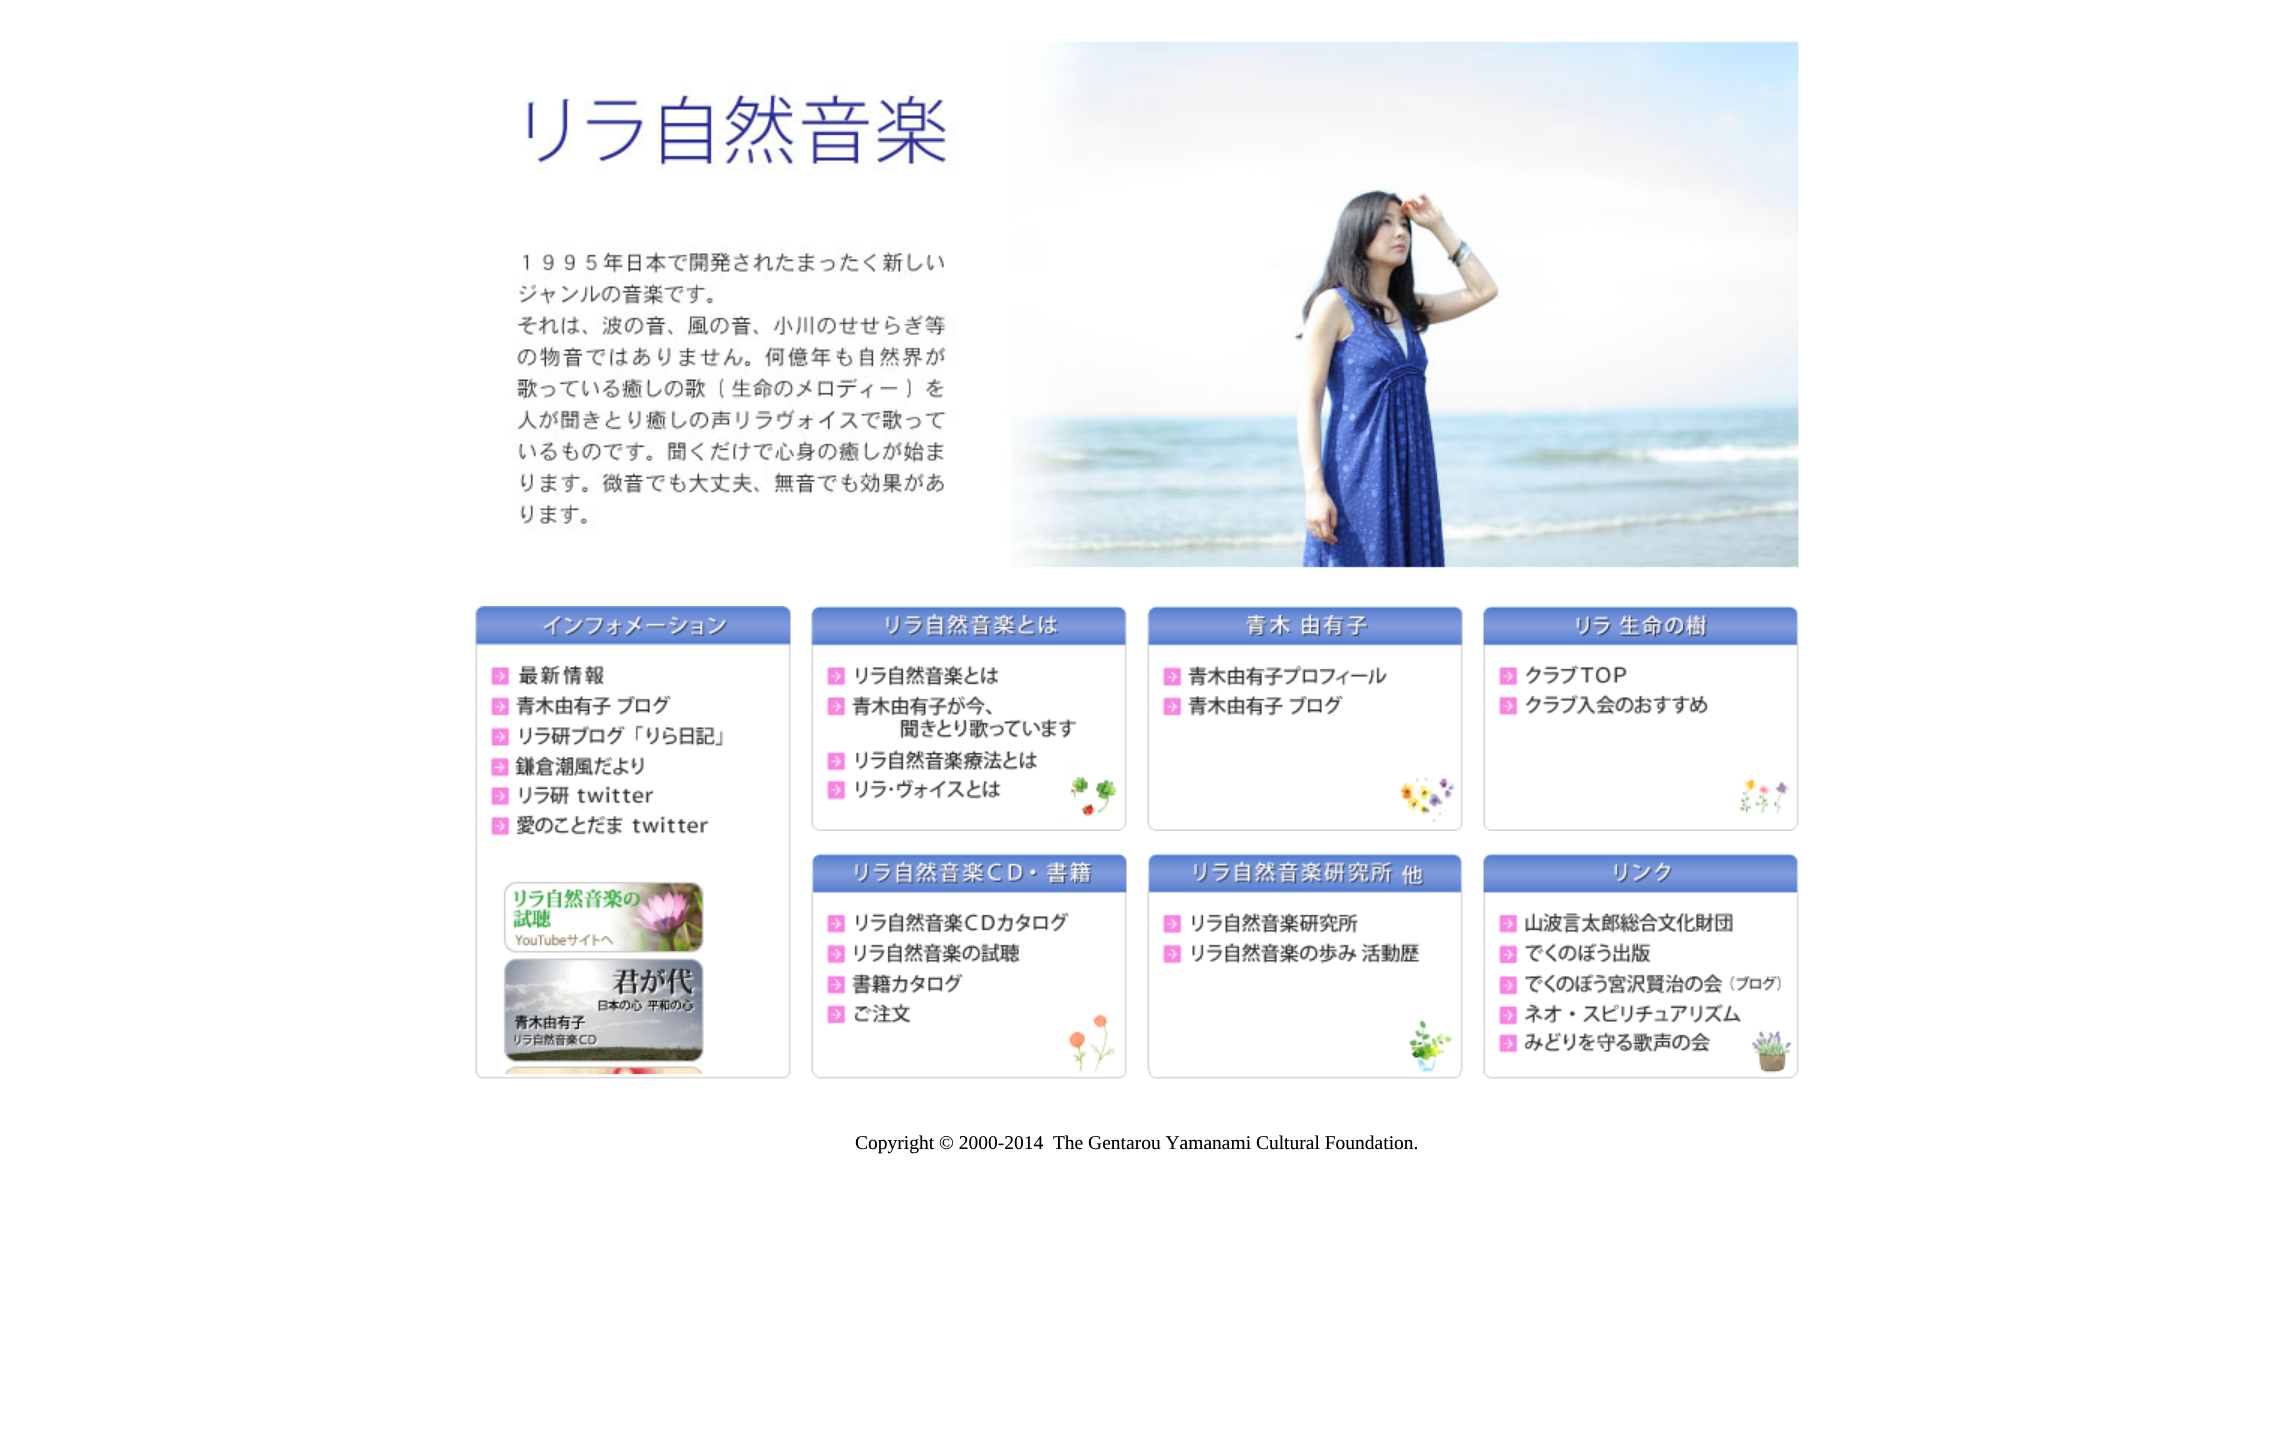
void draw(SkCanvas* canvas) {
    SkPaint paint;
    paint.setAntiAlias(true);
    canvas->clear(0xFFFFFFFF);
    canvas->drawImageRect(SkImages::DeferredFromEncodedData(SkData::MakeFromFileName("img1.png")), SkRect::MakeXYWH(511, 39, 1288, 529), SkSamplingOptions());
    canvas->drawImageRect(SkImages::DeferredFromEncodedData(SkData::MakeFromFileName("img2.png")), SkRect::MakeXYWH(475, 606, 316, 473), SkSamplingOptions());
    canvas->drawImageRect(SkImages::DeferredFromEncodedData(SkData::MakeFromFileName("img3.png")), SkRect::MakeXYWH(490, 665, 115, 21), SkSamplingOptions());
    canvas->drawImageRect(SkImages::DeferredFromEncodedData(SkData::MakeFromFileName("img4.png")), SkRect::MakeXYWH(490, 694, 181, 22), SkSamplingOptions());
    canvas->drawImageRect(SkImages::DeferredFromEncodedData(SkData::MakeFromFileName("img5.png")), SkRect::MakeXYWH(490, 725, 234, 21), SkSamplingOptions());
    canvas->drawImageRect(SkImages::DeferredFromEncodedData(SkData::MakeFromFileName("img6.png")), SkRect::MakeXYWH(490, 755, 154, 23), SkSamplingOptions());
    canvas->drawImageRect(SkImages::DeferredFromEncodedData(SkData::MakeFromFileName("img7.png")), SkRect::MakeXYWH(490, 785, 165, 21), SkSamplingOptions());
    canvas->drawImageRect(SkImages::DeferredFromEncodedData(SkData::MakeFromFileName("img8.png")), SkRect::MakeXYWH(490, 814, 219, 22), SkSamplingOptions());
    canvas->drawImageRect(SkImages::DeferredFromEncodedData(SkData::MakeFromFileName("img9.png")), SkRect::MakeXYWH(503, 881, 201, 72), SkSamplingOptions());
    canvas->drawImageRect(SkImages::DeferredFromEncodedData(SkData::MakeFromFileName("img10.png")), SkRect::MakeXYWH(503, 958, 201, 105), SkSamplingOptions());
    canvas->drawImageRect(SkImages::DeferredFromEncodedData(SkData::MakeFromFileName("img11.png")), SkRect::MakeXYWH(504, 1066, 199, 8), SkSamplingOptions());
    canvas->drawImageRect(SkImages::DeferredFromEncodedData(SkData::MakeFromFileName("img12.png")), SkRect::MakeXYWH(811, 606, 316, 225), SkSamplingOptions());
    canvas->drawImageRect(SkImages::DeferredFromEncodedData(SkData::MakeFromFileName("img13.png")), SkRect::MakeXYWH(826, 665, 174, 21), SkSamplingOptions());
    canvas->drawImageRect(SkImages::DeferredFromEncodedData(SkData::MakeFromFileName("img14.png")), SkRect::MakeXYWH(826, 695, 252, 44), SkSamplingOptions());
    canvas->drawImageRect(SkImages::DeferredFromEncodedData(SkData::MakeFromFileName("img15.png")), SkRect::MakeXYWH(826, 749, 211, 23), SkSamplingOptions());
    canvas->drawImageRect(SkImages::DeferredFromEncodedData(SkData::MakeFromFileName("img16.png")), SkRect::MakeXYWH(826, 778, 175, 22), SkSamplingOptions());
    canvas->drawImageRect(SkImages::DeferredFromEncodedData(SkData::MakeFromFileName("img17.png")), SkRect::MakeXYWH(1147, 606, 316, 225), SkSamplingOptions());
    canvas->drawImageRect(SkImages::DeferredFromEncodedData(SkData::MakeFromFileName("img18.png")), SkRect::MakeXYWH(1162, 665, 226, 21), SkSamplingOptions());
    canvas->drawImageRect(SkImages::DeferredFromEncodedData(SkData::MakeFromFileName("img19.png")), SkRect::MakeXYWH(1162, 694, 181, 22), SkSamplingOptions());
    canvas->drawImageRect(SkImages::DeferredFromEncodedData(SkData::MakeFromFileName("img20.png")), SkRect::MakeXYWH(1483, 606, 316, 225), SkSamplingOptions());
    canvas->drawImageRect(SkImages::DeferredFromEncodedData(SkData::MakeFromFileName("img21.png")), SkRect::MakeXYWH(1498, 664, 129, 22), SkSamplingOptions());
    canvas->drawImageRect(SkImages::DeferredFromEncodedData(SkData::MakeFromFileName("img22.png")), SkRect::MakeXYWH(1498, 694, 210, 22), SkSamplingOptions());
    canvas->drawImageRect(SkImages::DeferredFromEncodedData(SkData::MakeFromFileName("img23.png")), SkRect::MakeXYWH(811, 853, 316, 226), SkSamplingOptions());
    canvas->drawImageRect(SkImages::DeferredFromEncodedData(SkData::MakeFromFileName("img24.png")), SkRect::MakeXYWH(826, 911, 244, 23), SkSamplingOptions());
    canvas->drawImageRect(SkImages::DeferredFromEncodedData(SkData::MakeFromFileName("img25.png")), SkRect::MakeXYWH(826, 943, 194, 21), SkSamplingOptions());
    canvas->drawImageRect(SkImages::DeferredFromEncodedData(SkData::MakeFromFileName("img26.png")), SkRect::MakeXYWH(826, 973, 137, 22), SkSamplingOptions());
    canvas->drawImageRect(SkImages::DeferredFromEncodedData(SkData::MakeFromFileName("img27.png")), SkRect::MakeXYWH(826, 1003, 85, 21), SkSamplingOptions());
    canvas->drawImageRect(SkImages::DeferredFromEncodedData(SkData::MakeFromFileName("img28.png")), SkRect::MakeXYWH(1147, 853, 316, 226), SkSamplingOptions());
    canvas->drawImageRect(SkImages::DeferredFromEncodedData(SkData::MakeFromFileName("img29.png")), SkRect::MakeXYWH(1162, 913, 196, 21), SkSamplingOptions());
    canvas->drawImageRect(SkImages::DeferredFromEncodedData(SkData::MakeFromFileName("img30.png")), SkRect::MakeXYWH(1162, 943, 258, 21), SkSamplingOptions());
    canvas->drawImageRect(SkImages::DeferredFromEncodedData(SkData::MakeFromFileName("img31.png")), SkRect::MakeXYWH(1483, 853, 316, 226), SkSamplingOptions());
    canvas->drawImageRect(SkImages::DeferredFromEncodedData(SkData::MakeFromFileName("img32.png")), SkRect::MakeXYWH(1498, 913, 235, 21), SkSamplingOptions());
    canvas->drawImageRect(SkImages::DeferredFromEncodedData(SkData::MakeFromFileName("img33.png")), SkRect::MakeXYWH(1498, 943, 153, 21), SkSamplingOptions());
    canvas->drawImageRect(SkImages::DeferredFromEncodedData(SkData::MakeFromFileName("img34.png")), SkRect::MakeXYWH(1498, 973, 283, 22), SkSamplingOptions());
    canvas->drawImageRect(SkImages::DeferredFromEncodedData(SkData::MakeFromFileName("img35.png")), SkRect::MakeXYWH(1498, 1003, 244, 22), SkSamplingOptions());
    canvas->drawImageRect(SkImages::DeferredFromEncodedData(SkData::MakeFromFileName("img36.png")), SkRect::MakeXYWH(1498, 1031, 213, 23), SkSamplingOptions());
    SkFont font1(fontMgr->matchFamilyStyle("Liberation Serif", SkFontStyle::Normal()), 19.5f);
    font1.setSubpixel(true);
    paint.setColor(0xFF000000);
    canvas->drawString("Copyright © 2000-2014  The Gentarou Yamanami Cultural Foundation.", 855, 1149, font1, paint);
}
